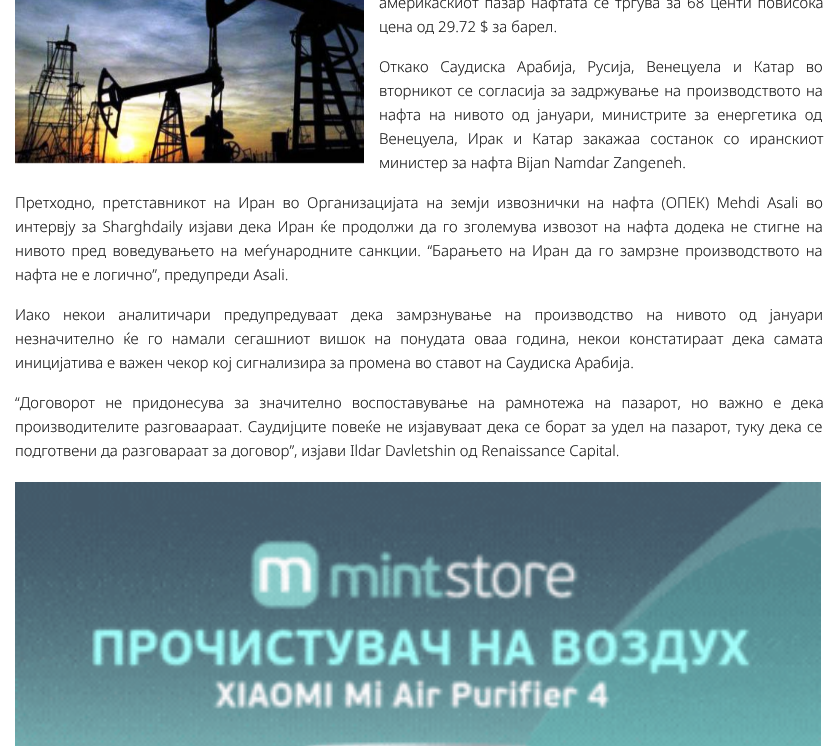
void draw(SkCanvas* canvas) {
    SkPaint paint;
    paint.setAntiAlias(true);
    auto spacedText = [&](const char* s, float x, float y, const SkFont& font, const SkPaint& ink, float letter, float word) {
        std::vector<SkGlyphID> glyphs(font.countText(s, strlen(s), SkTextEncoding::kUTF8));
        std::vector<float> xs(glyphs.size());
        font.textToGlyphs(s, strlen(s), SkTextEncoding::kUTF8, glyphs);
        font.getXPos(glyphs, xs, x);
        float extra = 0;
        for (size_t i = 0; i < glyphs.size(); i++) {
            xs[i] += extra;
            extra += letter + word * (glyphs[i] == font.unicharToGlyph(' '));
        }
        canvas->drawTextBlob(SkTextBlob::MakeFromPosHGlyphs(glyphs, xs, y, font), 0, 0, ink);
    };
    canvas->clear(0xFFFFFFFF);
    canvas->drawImageRect(SkImages::DeferredFromEncodedData(SkData::MakeFromFileName("img1.png")), SkRect::MakeXYWH(15, 0, 349, 164), SkSamplingOptions());
    SkFont font1(fontMgr->matchFamilyStyle("Noto Sans", SkFontStyle(300, SkFontStyle::kNormal_Width, SkFontStyle::kUpright_Slant)), 15);
    font1.setSubpixel(true);
    paint.setColor(0xFF222222);
    spacedText("америкаскиот пазар нафтата се тргува за 68 центи повисока", 379, 8, font1, paint, 0, 2);
    canvas->drawString("цена од 29.72 $ за барел.", 379, 32, font1, paint);
    spacedText("Откако Саудиска Арабија, Русија, Венецуела и Катар во", 379, 72, font1, paint, 0, 7.75f);
    spacedText("вторникот се согласија за задржување на производството на", 379, 96, font1, paint, 0, 1.5f);
    spacedText("нафта на нивото од јануари, министрите за енергетика од", 379, 120, font1, paint, 0, 4);
    spacedText("Венецуела, Ирак и Катар закажаа состанок со иранскиот", 379, 144, font1, paint, 0, 6.25f);
    canvas->drawString("министер за нафта Bijan Namdar Zangeneh.", 379, 168, font1, paint);
    spacedText("Претходно, претставникот на Иран во Организацијата на земји извознички на нафта (ОПЕК) Mehdi Asali во", 15, 208, font1, paint, 0, 3.75f);
    spacedText("интервју за Sharghdaily изјави дека Иран ќе продолжи да го зголемува извозот на нафта додека не стигне на", 15, 232, font1, paint, 0, 2.1f);
    spacedText("нивото пред воведувањето на меѓународните санкции. “Барањето на Иран да го замрзне производството на", 15, 256, font1, paint, 0, 2.5f);
    canvas->drawString("нафта не е логично”, предупреди Asali.", 15, 280, font1, paint);
    spacedText("Иако некои аналитичари предупредуваат дека замрзнување на производство на нивото од јануари", 15, 320, font1, paint, 0, 9.1f);
    spacedText("незначително ќе го намали сегашниот вишок на понудата оваа година, некои констатираат дека самата", 15, 344, font1, paint, 0, 5.1f);
    canvas->drawString("иницијатива е важен чекор кој сигнализира за промена во ставот на Саудиска Арабија.", 15, 368, font1, paint);
    spacedText("“Договорот не придонесува за значително воспоставување на рамнотежа на пазарот, но важно е дека", 15, 408, font1, paint, 0, 6.25f);
    spacedText("производителите разговаараат. Саудијците повеќе не изјавуваат дека се борат за удел на пазарот, туку дека се", 15, 432, font1, paint, 0, 1.3f);
    canvas->drawString("подготвени да разговараат за договор”, изјави Ildar Davletshin од Renaissance Capital.", 15, 456, font1, paint);
    canvas->drawImageRect(SkImages::DeferredFromEncodedData(SkData::MakeFromFileName("img2.png")), SkRect::MakeXYWH(15, 482, 806, 264), SkSamplingOptions());
}
